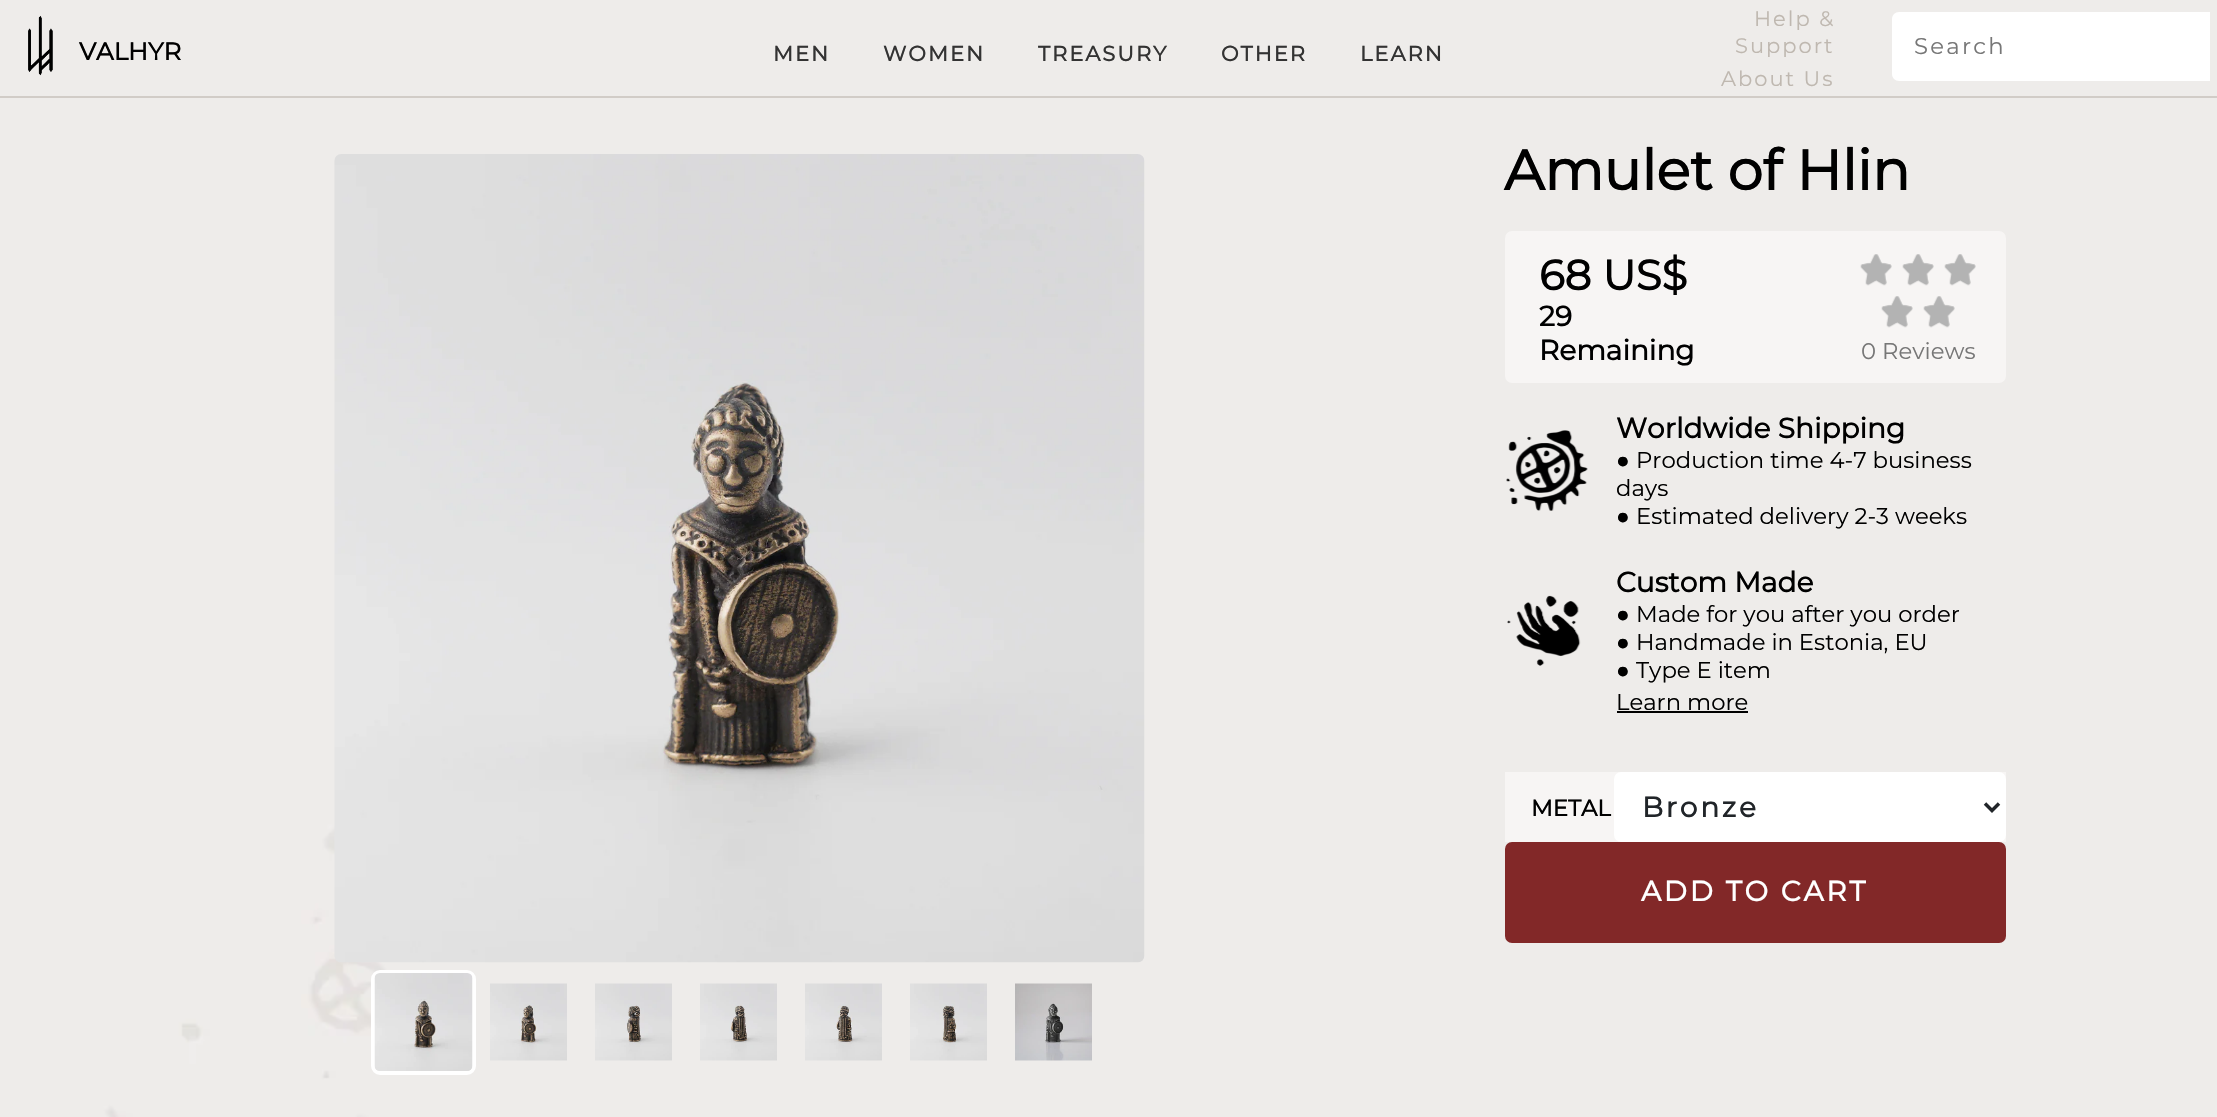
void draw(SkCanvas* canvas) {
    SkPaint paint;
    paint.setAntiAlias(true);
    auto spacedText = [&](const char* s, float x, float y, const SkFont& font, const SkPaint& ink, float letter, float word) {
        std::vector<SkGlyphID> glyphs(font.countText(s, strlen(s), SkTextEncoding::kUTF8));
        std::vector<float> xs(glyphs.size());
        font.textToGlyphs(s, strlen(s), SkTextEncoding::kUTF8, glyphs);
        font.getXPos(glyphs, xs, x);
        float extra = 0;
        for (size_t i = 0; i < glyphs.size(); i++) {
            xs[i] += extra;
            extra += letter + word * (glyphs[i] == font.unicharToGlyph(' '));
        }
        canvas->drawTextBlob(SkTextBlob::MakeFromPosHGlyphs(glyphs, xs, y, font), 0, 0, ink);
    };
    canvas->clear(0xFFFFFFFF);
    canvas->drawImageRect(SkImages::DeferredFromEncodedData(SkData::MakeFromFileName("img1.png")), SkRect::MakeXYWH(0, 98, 2217, 1019), SkSamplingOptions());
    paint.setColor(0xFFEEECEA);
    canvas->drawRect(SkRect::MakeXYWH(0, 0, 2217, 96), paint);
    paint.setColor(0xFFD1CCC7);
    canvas->drawRect(SkRect::MakeXYWH(0, 96, 2217, 2), paint);
    canvas->drawImageRect(SkImages::DeferredFromEncodedData(SkData::MakeFromFileName("img2.png")), SkRect::MakeXYWH(28, 15, 25, 61), SkSamplingOptions());
    SkFont font1(fontMgr->matchFamilyStyle("Montserrat", SkFontStyle::Bold()), 24.5f);
    font1.setSubpixel(true);
    paint.setColor(0xFF000000);
    canvas->drawString("VALHYR", 79, 60, font1, paint);
    SkFont font2(fontMgr->matchFamilyStyle("Montserrat", SkFontStyle::Bold()), 21);
    font2.setSubpixel(true);
    paint.setColor(0xFF333333);
    spacedText("MEN", 773, 61, font2, paint, 2, 0);
    spacedText("WOMEN", 883, 61, font2, paint, 2, 0);
    spacedText("TREASURY", 1038, 61, font2, paint, 2, 0);
    spacedText("OTHER", 1221, 61, font2, paint, 2, 0);
    spacedText("LEARN", 1360, 61, font2, paint, 2, 0);
    SkFont font3(fontMgr->matchFamilyStyle("Montserrat", SkFontStyle(100, SkFontStyle::kNormal_Width, SkFontStyle::kUpright_Slant)), 21);
    font3.setSubpixel(true);
    paint.setColor(0xFFBFB8B0);
    spacedText("Help &", 1754, 26, font3, paint, 2, 0);
    spacedText("Support", 1735, 53, font3, paint, 2, 0);
    spacedText("About Us", 1721, 86, font3, paint, 2, 0);
    paint.setColor(0xFFFFFFFF);
    canvas->drawPath(SkPathBuilder().moveTo(1899, 12).lineTo(2210, 12).lineTo(2210, 81).lineTo(1899, 81).cubicTo(1895, 81, 1892, 78, 1892, 74).lineTo(1892, 19).cubicTo(1892, 15, 1895, 12, 1899, 12).close().detach(), paint);
    SkFont font4(fontMgr->matchFamilyStyle("Montserrat", SkFontStyle(100, SkFontStyle::kNormal_Width, SkFontStyle::kUpright_Slant)), 22.75f);
    font4.setSubpixel(true);
    paint.setColor(0xFF777777);
    spacedText("Search", 1914, 54, font4, paint, 2.25f, 0);
    canvas->drawImageRect(SkImages::DeferredFromEncodedData(SkData::MakeFromFileName("img3.png")), SkRect::MakeXYWH(334, 154, 811, 809), SkSamplingOptions());
    paint.setStyle(SkPaint::kStroke_Style);
    paint.setStrokeWidth(4);
    paint.setColor(0xFFFFFFFF);
    canvas->drawRoundRect(SkRect::MakeXYWH(373, 972, 101, 101), 7, 7, paint);
    canvas->drawImageRect(SkImages::DeferredFromEncodedData(SkData::MakeFromFileName("img4.png")), SkRect::MakeXYWH(374, 973, 99, 98), SkSamplingOptions());
    canvas->drawImageRect(SkImages::DeferredFromEncodedData(SkData::MakeFromFileName("img5.png")), SkRect::MakeXYWH(490, 983, 77, 78), SkSamplingOptions());
    canvas->drawImageRect(SkImages::DeferredFromEncodedData(SkData::MakeFromFileName("img6.png")), SkRect::MakeXYWH(595, 983, 77, 78), SkSamplingOptions());
    canvas->drawImageRect(SkImages::DeferredFromEncodedData(SkData::MakeFromFileName("img7.png")), SkRect::MakeXYWH(700, 983, 77, 78), SkSamplingOptions());
    canvas->drawImageRect(SkImages::DeferredFromEncodedData(SkData::MakeFromFileName("img8.png")), SkRect::MakeXYWH(805, 983, 77, 78), SkSamplingOptions());
    canvas->drawImageRect(SkImages::DeferredFromEncodedData(SkData::MakeFromFileName("img9.png")), SkRect::MakeXYWH(910, 983, 77, 78), SkSamplingOptions());
    canvas->drawImageRect(SkImages::DeferredFromEncodedData(SkData::MakeFromFileName("img10.png")), SkRect::MakeXYWH(1015, 983, 77, 78), SkSamplingOptions());
    SkFont font5(fontMgr->matchFamilyStyle("Montserrat", SkFontStyle::Bold()), 56);
    font5.setSubpixel(true);
    paint.setStyle(SkPaint::kFill_Style);
    paint.setColor(0xFF000000);
    canvas->drawString("Amulet of Hlin", 1504, 190, font5, paint);
    paint.setColor(0xFFF7F5F4);
    canvas->drawRoundRect(SkRect::MakeXYWH(1505, 231, 501, 152), 7, 7, paint);
    SkFont font6(fontMgr->matchFamilyStyle("Montserrat", SkFontStyle::Bold()), 42);
    font6.setSubpixel(true);
    paint.setColor(0xFF000000);
    canvas->drawString("68 US$", 1539, 290, font6, paint);
    SkFont font7(fontMgr->matchFamilyStyle("Montserrat", SkFontStyle::Bold()), 28);
    font7.setSubpixel(true);
    canvas->drawString("29", 1539, 326, font7, paint);
    canvas->drawString("Remaining", 1539, 360, font7, paint);
    canvas->drawImageRect(SkImages::DeferredFromEncodedData(SkData::MakeFromFileName("img11.png")), SkRect::MakeXYWH(1860, 254, 32, 32), SkSamplingOptions());
    canvas->drawImageRect(SkImages::DeferredFromEncodedData(SkData::MakeFromFileName("img11.png")), SkRect::MakeXYWH(1902, 254, 32, 32), SkSamplingOptions());
    canvas->drawImageRect(SkImages::DeferredFromEncodedData(SkData::MakeFromFileName("img11.png")), SkRect::MakeXYWH(1944, 254, 32, 32), SkSamplingOptions());
    canvas->drawImageRect(SkImages::DeferredFromEncodedData(SkData::MakeFromFileName("img11.png")), SkRect::MakeXYWH(1881, 296, 32, 32), SkSamplingOptions());
    canvas->drawImageRect(SkImages::DeferredFromEncodedData(SkData::MakeFromFileName("img11.png")), SkRect::MakeXYWH(1923, 296, 32, 32), SkSamplingOptions());
    paint.setColor(0xFF777777);
    canvas->drawString("0 Reviews", 1861, 359, font4, paint);
    canvas->drawImageRect(SkImages::DeferredFromEncodedData(SkData::MakeFromFileName("img12.png")), SkRect::MakeXYWH(1506, 430, 82, 81), SkSamplingOptions());
    paint.setColor(0xFF000000);
    canvas->drawString("Worldwide Shipping", 1616, 438, font7, paint);
    SkFont font8(fontMgr->matchFamilyStyle("Liberation Sans", SkFontStyle::Normal()), 22.75f);
    font8.setSubpixel(true);
    canvas->drawString("●", 1616, 468, font8, paint);
    canvas->drawString("Production time 4-7 business", 1636, 468, font4, paint);
    canvas->drawString("days", 1616, 496, font4, paint);
    canvas->drawString("●", 1616, 524, font8, paint);
    canvas->drawString("Estimated delivery 2-3 weeks", 1636, 524, font4, paint);
    canvas->drawImageRect(SkImages::DeferredFromEncodedData(SkData::MakeFromFileName("img13.png")), SkRect::MakeXYWH(1507, 595, 74, 71), SkSamplingOptions());
    canvas->drawString("Custom Made", 1616, 592, font7, paint);
    canvas->drawString("●", 1616, 622, font8, paint);
    canvas->drawString("Made for you after you order", 1636, 622, font4, paint);
    canvas->drawString("●", 1616, 650, font8, paint);
    canvas->drawString("Handmade in Estonia, EU", 1636, 650, font4, paint);
    canvas->drawString("●", 1616, 678, font8, paint);
    canvas->drawString("Type E item", 1636, 678, font4, paint);
    canvas->drawString("Learn more", 1616, 710, font4, paint);
    canvas->drawRect(SkRect::MakeXYWH(1617, 711, 131, 2), paint);
    paint.setColor(0xFFF7F5F4);
    canvas->drawRect(SkRect::MakeXYWH(1505, 772, 501, 70), paint);
    SkFont font9(fontMgr->matchFamilyStyle("Montserrat", SkFontStyle::Bold()), 22.75f);
    font9.setSubpixel(true);
    paint.setColor(0xFF000000);
    canvas->drawString("METAL", 1531, 816, font9, paint);
    paint.setColor(0xFFFFFFFF);
    canvas->drawRoundRect(SkRect::MakeXYWH(1614, 772, 392, 70), 7, 7, paint);
    paint.setStyle(SkPaint::kStroke_Style);
    paint.setStrokeWidth(3.5f);
    paint.setColor(0xFF212529);
    canvas->drawPath(SkPathBuilder().moveTo(1985, 803.5f).lineTo(1992, 810.5f).lineTo(1999, 803.5f).detach(), paint);
    paint.setStyle(SkPaint::kFill_Style);
    spacedText("Bronze", 1642, 817, font7, paint, 2.75f, 0);
    paint.setColor(0xFF822828);
    canvas->drawRoundRect(SkRect::MakeXYWH(1506, 843, 499, 99), 6, 6, paint);
    paint.setStyle(SkPaint::kStroke_Style);
    paint.setStrokeWidth(2);
    canvas->drawRoundRect(SkRect::MakeXYWH(1506, 843, 499, 99), 6, 6, paint);
    paint.setStyle(SkPaint::kFill_Style);
    paint.setColor(0xFFFFFFFF);
    spacedText("ADD TO CART", 1641, 901, font7, paint, 2.75f, 0);
}
